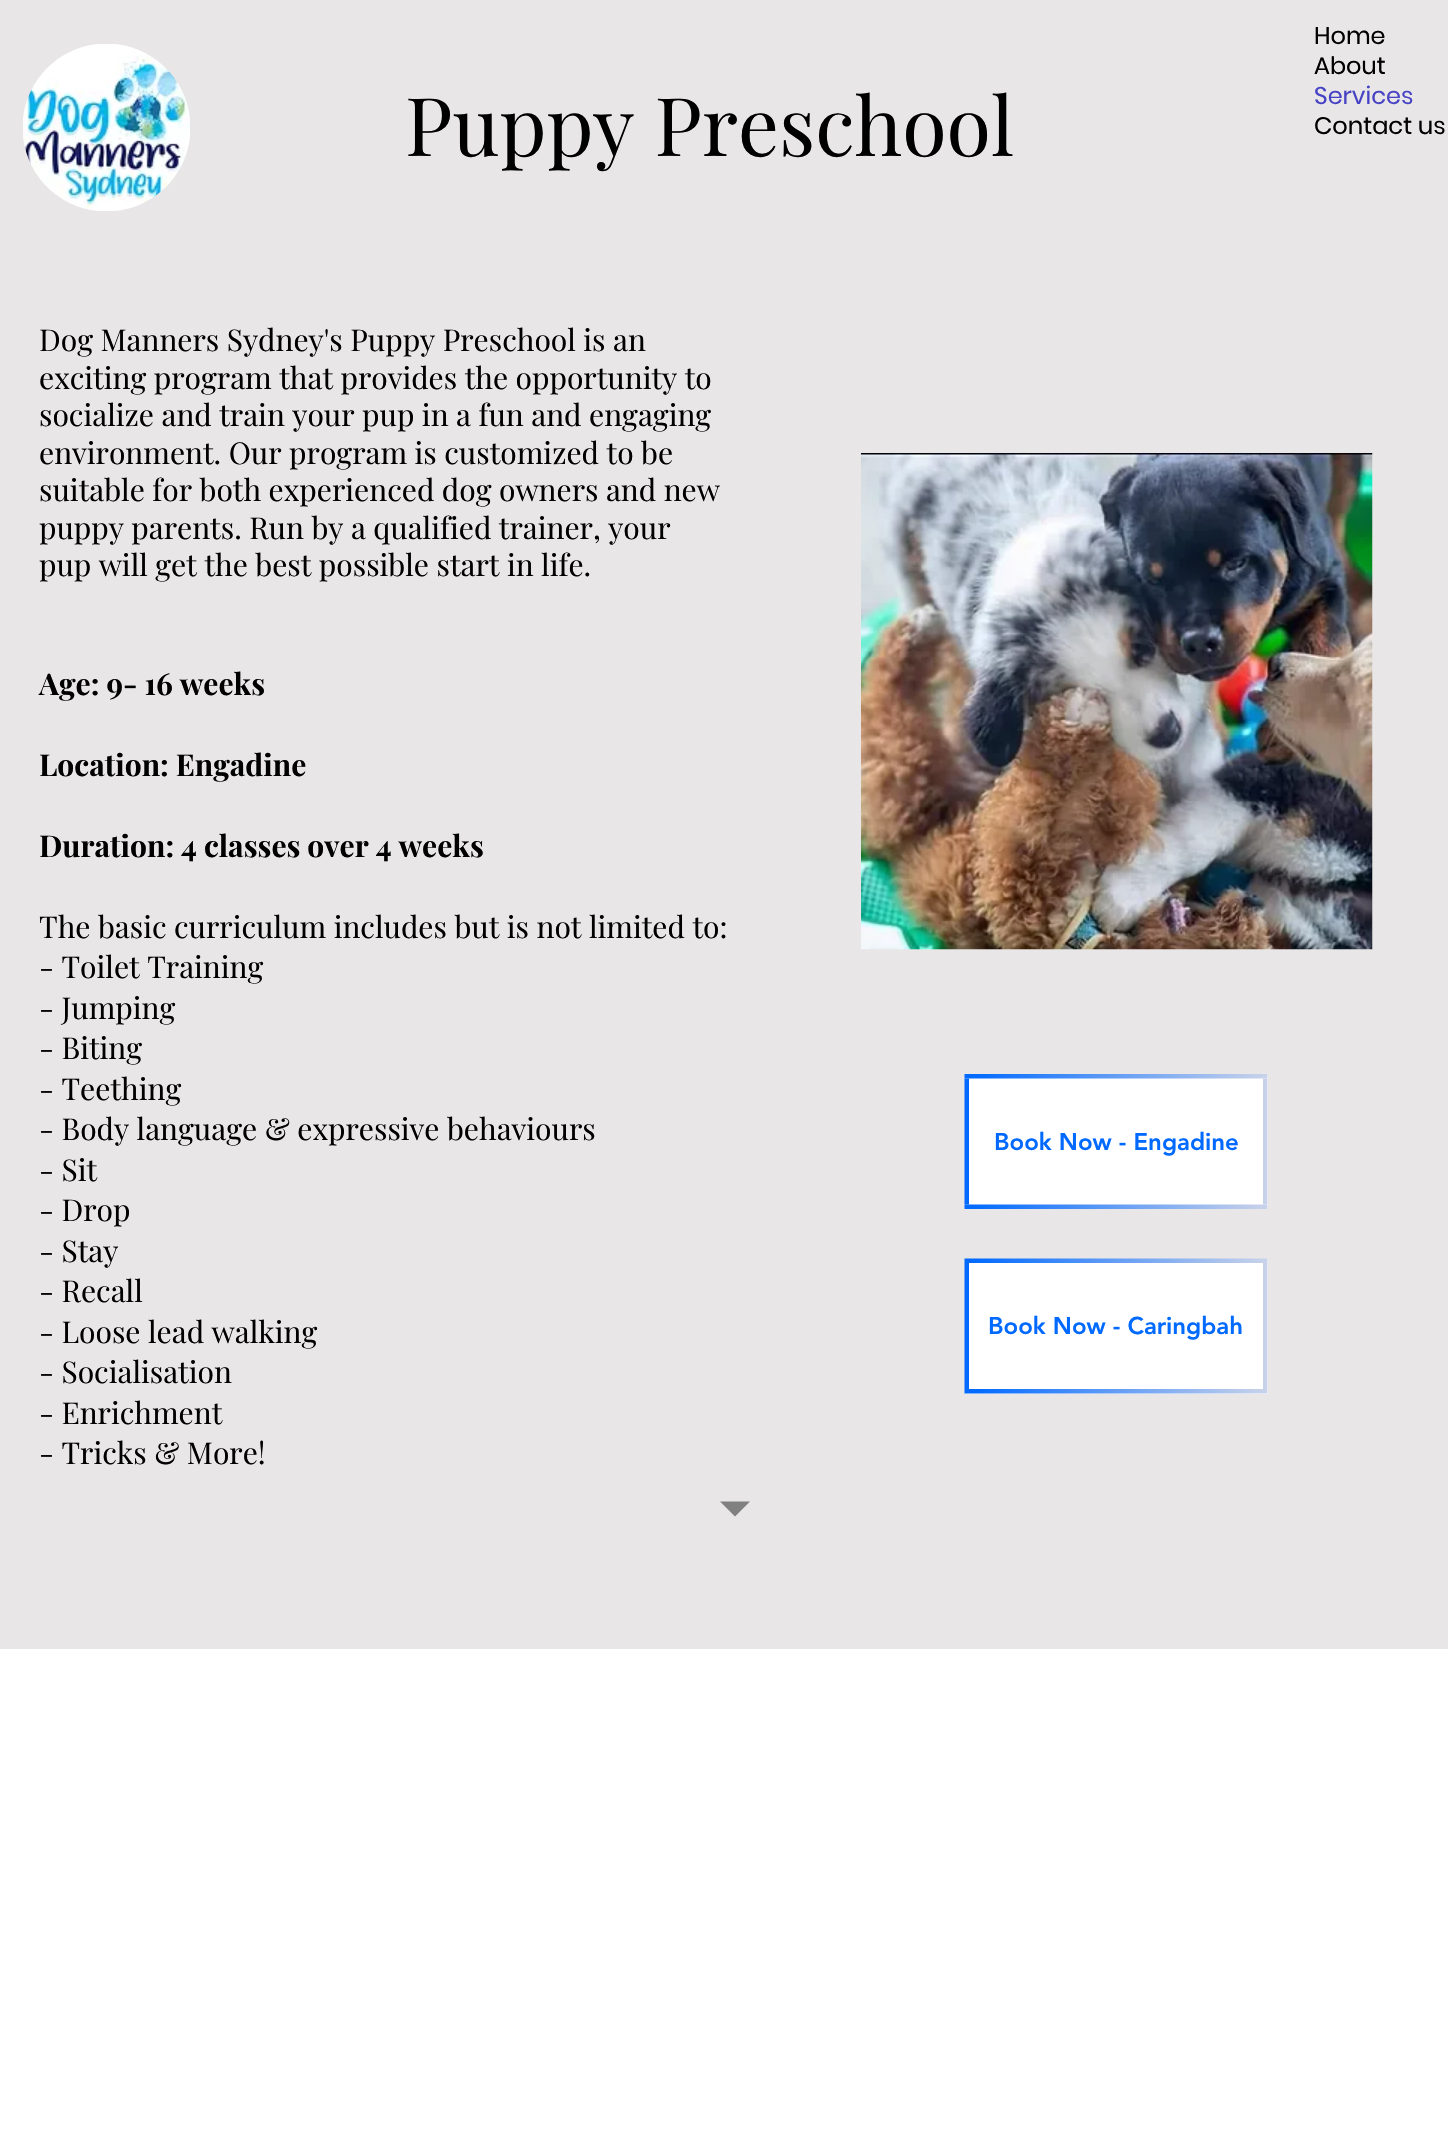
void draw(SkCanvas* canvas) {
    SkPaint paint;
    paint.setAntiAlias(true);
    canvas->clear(0xFFFFFFFF);
    paint.setColor(0xFFE8E6E6);
    canvas->drawRect(SkRect::MakeXYWH(0, 0, 1448, 1649), paint);
    canvas->drawImageRect(SkImages::DeferredFromEncodedData(SkData::MakeFromFileName("img1.png")), SkRect::MakeXYWH(23, 44, 167, 167), SkSamplingOptions());
    SkFont font1(fontMgr->matchFamilyStyle("Playfair Display", SkFontStyle::Normal()), 81);
    font1.setSubpixel(true);
    paint.setColor(0xFF000000);
    canvas->drawString("Puppy Preschool", 405, 156, font1, paint);
    SkFont font2(fontMgr->matchFamilyStyle("Poppins", SkFontStyle::Normal()), 24);
    font2.setSubpixel(true);
    canvas->drawString("Home", 1314, 44, font2, paint);
    canvas->drawString("About", 1314, 74, font2, paint);
    paint.setColor(0xFF4743C5);
    canvas->drawString("Services", 1314, 104, font2, paint);
    paint.setColor(0xFF000000);
    canvas->drawString("Contact us", 1314, 134, font2, paint);
    SkFont font3(fontMgr->matchFamilyStyle("Playfair Display", SkFontStyle::Normal()), 30);
    font3.setSubpixel(true);
    canvas->drawString("Dog Manners Sydney's Puppy Preschool is an", 39, 351, font3, paint);
    canvas->drawString("exciting program that provides the opportunity to", 39, 389, font3, paint);
    canvas->drawString("socialize and train your pup in a fun and engaging", 39, 426, font3, paint);
    canvas->drawString("environment. Our program is customized to be", 39, 464, font3, paint);
    canvas->drawString("suitable for both experienced dog owners and new", 39, 501, font3, paint);
    canvas->drawString("puppy parents. Run by a qualified trainer, your", 39, 539, font3, paint);
    canvas->drawString("pup will get the best possible start in life.", 39, 576, font3, paint);
    SkFont font4(fontMgr->matchFamilyStyle("Playfair Display", SkFontStyle::Bold()), 30);
    font4.setSubpixel(true);
    canvas->drawString("Age: 9- 16 weeks", 39, 695, font4, paint);
    canvas->drawString("Location: Engadine", 39, 776, font4, paint);
    canvas->drawString("Duration: 4 classes over 4 weeks", 39, 857, font4, paint);
    canvas->drawString("The basic curriculum includes but is not limited to:", 39, 938, font3, paint);
    canvas->drawString("- Toilet Training", 39, 978, font3, paint);
    canvas->drawString("- Jumping", 39, 1019, font3, paint);
    canvas->drawString("- Biting", 39, 1059, font3, paint);
    canvas->drawString("- Teething", 39, 1100, font3, paint);
    canvas->drawString("- Body language & expressive behaviours", 39, 1140, font3, paint);
    canvas->drawString("- Sit", 39, 1181, font3, paint);
    canvas->drawString("- Drop", 39, 1221, font3, paint);
    canvas->drawString("- Stay", 39, 1262, font3, paint);
    canvas->drawString("- Recall", 39, 1302, font3, paint);
    canvas->drawString("- Loose lead walking", 39, 1343, font3, paint);
    canvas->drawString("- Socialisation", 39, 1383, font3, paint);
    canvas->drawString("- Enrichment", 39, 1424, font3, paint);
    canvas->drawString("- Tricks & More!", 39, 1464, font3, paint);
    canvas->drawImageRect(SkImages::DeferredFromEncodedData(SkData::MakeFromFileName("img2.png")), SkRect::MakeXYWH(861, 453, 512, 497), SkSamplingOptions());
    paint.setColor(0xFFFFFFFF);
    canvas->drawRect(SkRect::MakeXYWH(965, 1074, 303, 135), paint);
    canvas->drawImageRect(SkImages::DeferredFromEncodedData(SkData::MakeFromFileName("img3.png")), SkRect::MakeXYWH(964, 1074, 304, 135), SkSamplingOptions());
    SkFont font5(fontMgr->matchFamilyStyle("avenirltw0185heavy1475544", SkFontStyle(900, SkFontStyle::kNormal_Width, SkFontStyle::kUpright_Slant)), 24);
    font5.setSubpixel(true);
    paint.setColor(0xFF0069FF);
    canvas->drawString("Book Now - Engadine", 994, 1150, font5, paint);
    paint.setColor(0xFFFFFFFF);
    canvas->drawRect(SkRect::MakeXYWH(965, 1259, 303, 135), paint);
    canvas->drawImageRect(SkImages::DeferredFromEncodedData(SkData::MakeFromFileName("img4.png")), SkRect::MakeXYWH(964, 1258, 304, 136), SkSamplingOptions());
    paint.setColor(0xFF0069FF);
    canvas->drawString("Book Now - Caringbah", 988, 1334, font5, paint);
    paint.setColor(0xFF808080);
    canvas->drawPath(SkPathBuilder().moveTo(720, 1501.5f).lineTo(750, 1501.5f).lineTo(735, 1516.5f).close().detach(), paint);
}
